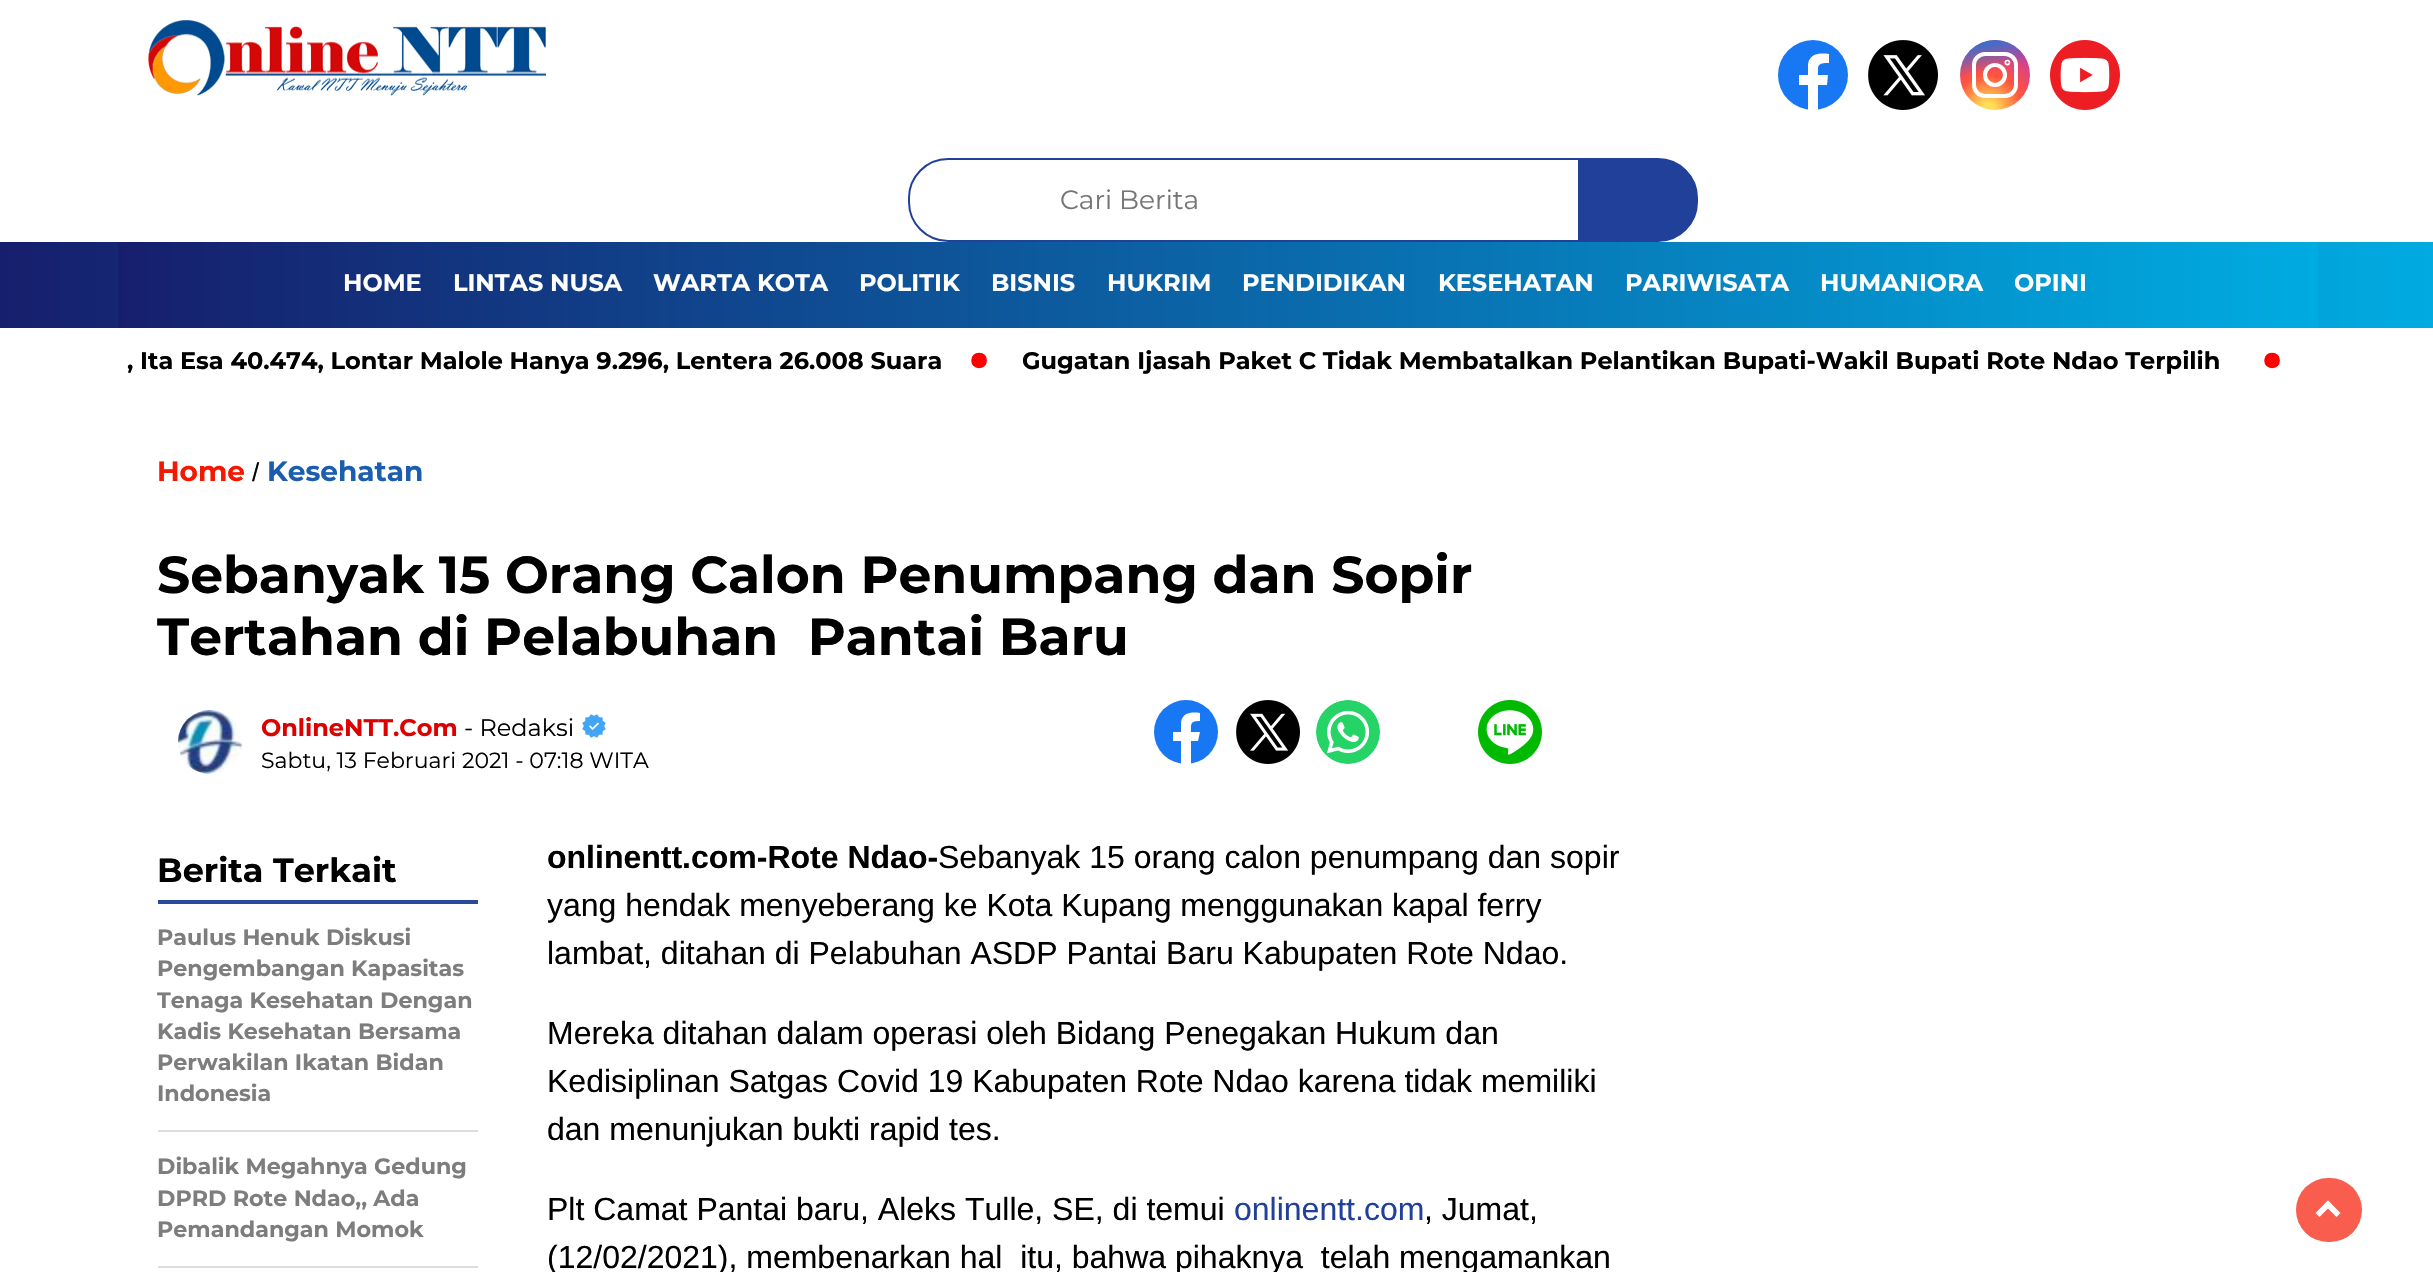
void draw(SkCanvas* canvas) {
    SkPaint paint;
    paint.setAntiAlias(true);
    canvas->clear(0xFFFFFFFF);
    canvas->drawImageRect(SkImages::DeferredFromEncodedData(SkData::MakeFromFileName("img1.png")), SkRect::MakeXYWH(148, 20, 398, 76), SkSamplingOptions());
    paint.setColor(0xFF1877F2);
    canvas->drawCircle(1813, 75, 35, paint);
    paint.setColor(0xFFFFFFFF);
    canvas->drawPath(SkPathBuilder().moveTo(1827, 85).lineTo(1818, 85).lineTo(1818, 110).cubicTo(1815, 110, 1811, 110, 1808, 110).lineTo(1808, 85).lineTo(1799, 85).lineTo(1799, 75).lineTo(1808, 75).lineTo(1808, 64).cubicTo(1810, 53, 1820, 53, 1829, 54).lineTo(1829, 63).cubicTo(1817, 63, 1818, 65, 1818, 75).lineTo(1828, 75).close().detach(), paint);
    canvas->drawImageRect(SkImages::DeferredFromEncodedData(SkData::MakeFromFileName("img2.png")), SkRect::MakeXYWH(1868, 40, 70, 70), SkSamplingOptions());
    {
        const SkColor colors[] = {0xFFFFDD55, 0xFFFF543E, 0xFFC837AB};
        const float stops[] = {0.1f, 0.5f, 1};
        paint.setShader(SkGradientShader::MakeRadial({1988, 110}, 70, colors, stops, 3, SkTileMode::kClamp));
        paint.setAlpha(255);
    }
    canvas->drawCircle(1995, 75, 35, paint);
    {
        const SkColor colors[] = {0xFF3771C8, 0x003771C8};
        const float stops[] = {0.1f, 0.5f};
        const SkPoint ends[] = {{1960, 40}, {1974, 110}};
        paint.setShader(SkGradientShader::MakeLinear(ends, colors, stops, 2, SkTileMode::kClamp));
        paint.setAlpha(255);
    }
    canvas->drawCircle(1995, 75, 35, paint);
    paint.setStyle(SkPaint::kStroke_Style);
    paint.setStrokeWidth(4);
    paint.setShader(nullptr);
    paint.setColor(0xFFFFFFFF);
    canvas->drawRoundRect(SkRect::MakeXYWH(1974, 54, 42, 42), 11, 11, paint);
    paint.setStrokeWidth(4.1f);
    canvas->drawCircle(1995, 75, 10, paint);
    canvas->drawCircle(2007.4f, 62.6f, 0.8f, paint);
    canvas->drawImageRect(SkImages::DeferredFromEncodedData(SkData::MakeFromFileName("img3.png")), SkRect::MakeXYWH(2050, 40, 70, 70), SkSamplingOptions());
    paint.setStrokeWidth(2);
    paint.setColor(0xFF21409A);
    canvas->drawPath(SkPathBuilder().moveTo(948, 159).lineTo(1579, 159).lineTo(1579, 241).lineTo(948, 241).cubicTo(926.5f, 241, 909, 223.5f, 909, 202).lineTo(909, 198).cubicTo(909, 176.5f, 926.5f, 159, 948, 159).close().detach(), paint);
    SkFont font1(fontMgr->matchFamilyStyle("Montserrat", SkFontStyle::Normal()), 26.5f);
    font1.setSubpixel(true);
    paint.setStyle(SkPaint::kFill_Style);
    paint.setColor(0xFF757575);
    canvas->drawString("Cari Berita", 1060, 209, font1, paint);
    paint.setColor(0xFF21409A);
    canvas->drawPath(SkPathBuilder().moveTo(1579, 159).lineTo(1658, 159).cubicTo(1679.5f, 159, 1697, 176.5f, 1697, 198).lineTo(1697, 202).cubicTo(1697, 223.5f, 1679.5f, 241, 1658, 241).lineTo(1579, 241).close().detach(), paint);
    paint.setStyle(SkPaint::kStroke_Style);
    canvas->drawPath(SkPathBuilder().moveTo(1579, 159).lineTo(1658, 159).cubicTo(1679.5f, 159, 1697, 176.5f, 1697, 198).lineTo(1697, 202).cubicTo(1697, 223.5f, 1679.5f, 241, 1658, 241).lineTo(1579, 241).close().detach(), paint);
    paint.setStyle(SkPaint::kFill_Style);
    {
        const SkColor colors[] = {0xFF161F6D, 0xFF00ABE1};
        const float stops[] = {0, 1};
        const SkPoint ends[] = {{0, 285}, {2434, 285}};
        paint.setShader(SkGradientShader::MakeLinear(ends, colors, stops, 2, SkTileMode::kClamp));
        paint.setAlpha(255);
    }
    canvas->drawRect(SkRect::MakeXYWH(0, 242, 2433, 86), paint);
    {
        const SkColor colors[] = {0xFF161F6D, 0xFF00ABE1};
        const float stops[] = {0, 1};
        const SkPoint ends[] = {{118, 285}, {2318, 285}};
        paint.setShader(SkGradientShader::MakeLinear(ends, colors, stops, 2, SkTileMode::kClamp));
        paint.setAlpha(255);
    }
    canvas->drawRect(SkRect::MakeXYWH(118, 242, 2200, 86), paint);
    SkFont font2(fontMgr->matchFamilyStyle("Montserrat", SkFontStyle::Bold()), 24);
    font2.setSubpixel(true);
    paint.setShader(nullptr);
    paint.setColor(0xFFFFFFFF);
    canvas->drawString("HOME", 343, 291, font2, paint);
    canvas->drawString("LINTAS NUSA", 453, 291, font2, paint);
    canvas->drawString("WARTA KOTA", 653, 291, font2, paint);
    canvas->drawString("POLITIK", 859, 291, font2, paint);
    canvas->drawString("BISNIS", 991, 291, font2, paint);
    canvas->drawString("HUKRIM", 1107, 291, font2, paint);
    canvas->drawString("PENDIDIKAN", 1242, 291, font2, paint);
    canvas->drawString("KESEHATAN", 1438, 291, font2, paint);
    canvas->drawString("PARIWISATA", 1625, 291, font2, paint);
    canvas->drawString("HUMANIORA", 1820, 291, font2, paint);
    canvas->drawString("OPINI", 2014, 291, font2, paint);
    paint.setColor(0xFF000000);
    canvas->drawString(", Ita Esa 40.474, Lontar Malole Hanya 9.296, Lentera 26.008 Suara", 127, 369, font2, paint);
    SkFont font3(fontMgr->matchFamilyStyle("Montserrat", SkFontStyle::Bold()), 80);
    font3.setSubpixel(true);
    paint.setColor(0xFFFF0000);
    canvas->drawString("·", 967, 383, font3, paint);
    paint.setColor(0xFF000000);
    canvas->drawString("Gugatan Ijasah Paket C Tidak Membatalkan Pelantikan Bupati-Wakil Bupati Rote Ndao Terpilih", 1022, 369, font2, paint);
    paint.setColor(0xFFFF0000);
    canvas->drawString("·", 2260, 383, font3, paint);
    SkFont font4(fontMgr->matchFamilyStyle("Montserrat", SkFontStyle::Bold()), 28);
    font4.setSubpixel(true);
    paint.setColor(0xFFF51700);
    canvas->drawString("Home", 157, 481, font4, paint);
    SkFont font5(fontMgr->matchFamilyStyle("Liberation Sans", SkFontStyle::Normal()), 26);
    font5.setSubpixel(true);
    paint.setColor(0xFF000000);
    canvas->drawString("/", 252, 481, font5, paint);
    paint.setColor(0xFF1B5DAF);
    canvas->drawString("Kesehatan", 267, 481, font4, paint);
    SkFont font6(fontMgr->matchFamilyStyle("Montserrat", SkFontStyle::Bold()), 52);
    font6.setSubpixel(true);
    paint.setColor(0xFF000000);
    canvas->drawString("Sebanyak 15 Orang Calon Penumpang dan Sopir", 157, 593, font6, paint);
    canvas->drawString("Tertahan di Pelabuhan  Pantai Baru", 157, 655, font6, paint);
    canvas->drawImageRect(SkImages::DeferredFromEncodedData(SkData::MakeFromFileName("img4.png")), SkRect::MakeXYWH(178, 710, 64, 64), SkSamplingOptions());
    paint.setColor(0xFFDD0000);
    canvas->drawString("OnlineNTT.Com", 261, 736, font2, paint);
    SkFont font7(fontMgr->matchFamilyStyle("Montserrat", SkFontStyle::Normal()), 24);
    font7.setSubpixel(true);
    paint.setColor(0xFF000000);
    canvas->drawString("- Redaksi", 464, 736, font7, paint);
    canvas->drawImageRect(SkImages::DeferredFromEncodedData(SkData::MakeFromFileName("img5.png")), SkRect::MakeXYWH(582, 714, 24, 24), SkSamplingOptions());
    SkFont font8(fontMgr->matchFamilyStyle("Montserrat", SkFontStyle::Normal()), 22);
    font8.setSubpixel(true);
    canvas->drawString("Sabtu, 13 Februari 2021 - 07:18 WITA", 261, 768, font8, paint);
    paint.setColor(0xFF1877F2);
    canvas->drawCircle(1186, 732, 32, paint);
    paint.setColor(0xFFFFFFFF);
    canvas->drawPath(SkPathBuilder().moveTo(1198, 741).lineTo(1191, 741).lineTo(1191, 764).cubicTo(1188, 764, 1184, 764, 1181, 764).lineTo(1181, 741).lineTo(1173, 741).lineTo(1173, 732).lineTo(1181, 732).lineTo(1181, 722).cubicTo(1183, 712, 1192, 712, 1200, 713).lineTo(1200, 721).cubicTo(1190, 721, 1191, 724, 1191, 732).lineTo(1200, 732).close().detach(), paint);
    canvas->drawImageRect(SkImages::DeferredFromEncodedData(SkData::MakeFromFileName("img6.png")), SkRect::MakeXYWH(1236, 700, 64, 64), SkSamplingOptions());
    canvas->drawImageRect(SkImages::DeferredFromEncodedData(SkData::MakeFromFileName("img7.png")), SkRect::MakeXYWH(1316, 700, 64, 64), SkSamplingOptions());
    canvas->drawImageRect(SkImages::DeferredFromEncodedData(SkData::MakeFromFileName("img8.png")), SkRect::MakeXYWH(1478, 700, 64, 64), SkSamplingOptions());
    paint.setColor(0xFF284A9A);
    canvas->drawRect(SkRect::MakeXYWH(158, 900, 320, 4), paint);
    SkFont font9(fontMgr->matchFamilyStyle("Montserrat", SkFontStyle::Bold()), 33.5f);
    font9.setSubpixel(true);
    paint.setColor(0xFF000000);
    canvas->drawString("Berita Terkait", 157, 882, font9, paint);
    paint.setColor(0xFFDDDDDD);
    canvas->drawRect(SkRect::MakeXYWH(158, 1130, 320, 2), paint);
    SkFont font10(fontMgr->matchFamilyStyle("Montserrat", SkFontStyle::Bold()), 22.25f);
    font10.setSubpixel(true);
    paint.setColor(0xFF7D7D7D);
    canvas->drawString("Paulus Henuk Diskusi", 157, 945, font10, paint);
    canvas->drawString("Pengembangan Kapasitas", 157, 976, font10, paint);
    canvas->drawString("Tenaga Kesehatan Dengan", 157, 1008, font10, paint);
    canvas->drawString("Kadis Kesehatan Bersama", 157, 1039, font10, paint);
    canvas->drawString("Perwakilan Ikatan Bidan", 157, 1070, font10, paint);
    canvas->drawString("Indonesia", 157, 1101, font10, paint);
    paint.setColor(0xFFDDDDDD);
    canvas->drawRect(SkRect::MakeXYWH(158, 1266, 320, 2), paint);
    paint.setColor(0xFF7D7D7D);
    canvas->drawString("Dibalik Megahnya Gedung", 157, 1174, font10, paint);
    canvas->drawString("DPRD Rote Ndao,, Ada", 157, 1206, font10, paint);
    canvas->drawString("Pemandangan Momok", 157, 1237, font10, paint);
    SkFont font11(fontMgr->matchFamilyStyle("Liberation Sans", SkFontStyle::Bold()), 32);
    font11.setSubpixel(true);
    paint.setColor(0xFF000000);
    canvas->drawString("onlinentt.com-Rote Ndao-", 547, 868, font11, paint);
    SkFont font12(fontMgr->matchFamilyStyle("Liberation Sans", SkFontStyle::Normal()), 32);
    font12.setSubpixel(true);
    canvas->drawString("Sebanyak 15 orang calon penumpang dan sopir", 938, 868, font12, paint);
    canvas->drawString("yang hendak menyeberang ke Kota Kupang menggunakan kapal ferry", 547, 916, font12, paint);
    canvas->drawString("lambat, ditahan di Pelabuhan ASDP Pantai Baru Kabupaten Rote Ndao.", 547, 964, font12, paint);
    canvas->drawString("Mereka ditahan dalam operasi oleh Bidang Penegakan Hukum dan", 547, 1044, font12, paint);
    canvas->drawString("Kedisiplinan Satgas Covid 19 Kabupaten Rote Ndao karena tidak memiliki", 547, 1092, font12, paint);
    canvas->drawString("dan menunjukan bukti rapid tes.", 547, 1140, font12, paint);
    canvas->drawString("Plt Camat Pantai baru, Aleks Tulle, SE, di temui", 547, 1220, font12, paint);
    paint.setColor(0xFF21409A);
    canvas->drawString("onlinentt.com", 1234, 1220, font12, paint);
    paint.setColor(0xFF000000);
    canvas->drawString(", Jumat,", 1424, 1220, font12, paint);
    canvas->drawString("(12/02/2021), membenarkan hal  itu, bahwa pihaknya  telah mengamankan", 547, 1268, font12, paint);
    paint.setColor(0xFFF85D4D);
    canvas->drawRoundRect(SkRect::MakeXYWH(2296, 1178, 66, 64), 32, 32, paint);
    paint.setColor(0xFFFFFFFF);
    canvas->drawPath(SkPathBuilder().moveTo(2319.5f, 1217).lineTo(2315.5f, 1213).lineTo(2328, 1200.5f).lineTo(2332, 1204.5f).close().detach(), paint);
    canvas->drawPath(SkPathBuilder().moveTo(2336.5f, 1217).lineTo(2324, 1204.5f).lineTo(2328, 1200.5f).lineTo(2340.5f, 1213).close().detach(), paint);
}
